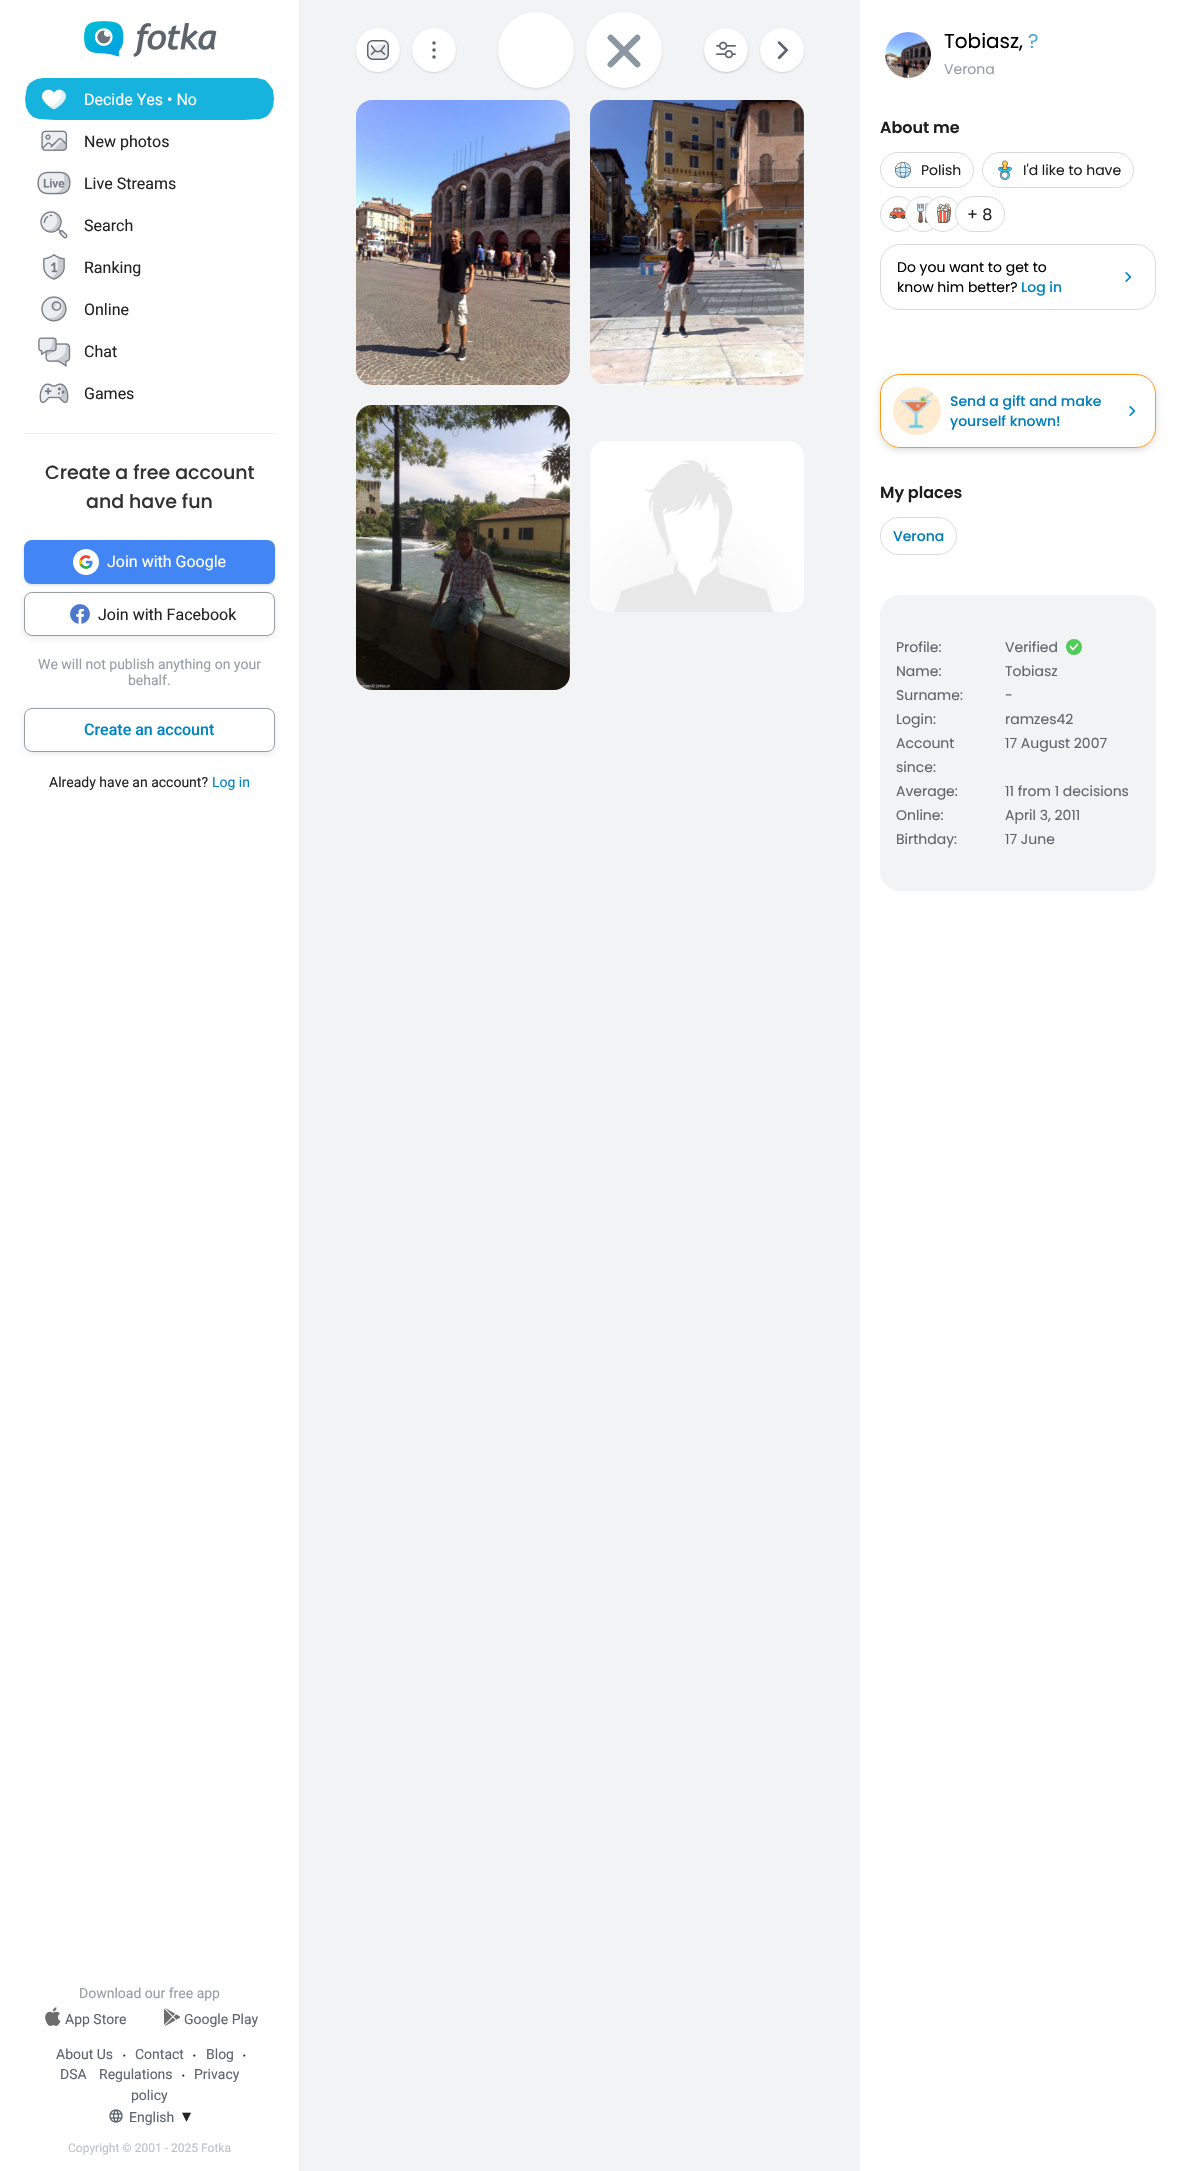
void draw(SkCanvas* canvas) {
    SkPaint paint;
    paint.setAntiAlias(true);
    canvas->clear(0xFFFFFFFF);
    paint.setColor(0xFFEBECED);
    canvas->drawRect(SkRect::MakeXYWH(299, 0, 1, 2171), paint);
    canvas->drawImageRect(SkImages::DeferredFromEncodedData(SkData::MakeFromFileName("img1.png")), SkRect::MakeXYWH(84, 21, 133, 36), SkSamplingOptions());
    paint.setColor(0xFF16B3DE);
    canvas->drawPath(SkPathBuilder().moveTo(274, 99).lineTo(273, 90).lineTo(269, 84).lineTo(267, 82).lineTo(265, 80).lineTo(257, 78).lineTo(241, 78).lineTo(64, 78).lineTo(43, 78).lineTo(37, 79).lineTo(33, 81).lineTo(30, 83).lineTo(27, 87).lineTo(26, 93).lineTo(25, 99).lineTo(26, 107).lineTo(29, 113).lineTo(33, 117).lineTo(39, 119).lineTo(55, 120).lineTo(153, 120).lineTo(244, 120).lineTo(260, 119).lineTo(266, 117).lineTo(270, 113).lineTo(273, 107).close().detach(), paint);
    canvas->drawImageRect(SkImages::DeferredFromEncodedData(SkData::MakeFromFileName("img2.png")), SkRect::MakeXYWH(42, 89, 24, 21), SkSamplingOptions());
    SkFont font1(fontMgr->matchFamilyStyle("Roboto", SkFontStyle::Normal()), 16);
    font1.setSubpixel(true);
    paint.setColor(0xFFFFFFFF);
    canvas->drawString("Decide Yes • No", 84, 105, font1, paint);
    canvas->drawImageRect(SkImages::DeferredFromEncodedData(SkData::MakeFromFileName("img3.png")), SkRect::MakeXYWH(41, 130, 27, 21), SkSamplingOptions());
    paint.setColor(0xFF222222);
    canvas->drawString("New photos", 84, 147, font1, paint);
    canvas->drawImageRect(SkImages::DeferredFromEncodedData(SkData::MakeFromFileName("img4.png")), SkRect::MakeXYWH(37, 171, 34, 24), SkSamplingOptions());
    canvas->drawString("Live Streams", 84, 189, font1, paint);
    canvas->drawImageRect(SkImages::DeferredFromEncodedData(SkData::MakeFromFileName("img5.png")), SkRect::MakeXYWH(40, 211, 28, 28), SkSamplingOptions());
    canvas->drawString("Search", 84, 231, font1, paint);
    canvas->drawImageRect(SkImages::DeferredFromEncodedData(SkData::MakeFromFileName("img6.png")), SkRect::MakeXYWH(43, 254, 22, 26), SkSamplingOptions());
    canvas->drawString("Ranking", 84, 273, font1, paint);
    canvas->drawImageRect(SkImages::DeferredFromEncodedData(SkData::MakeFromFileName("img7.png")), SkRect::MakeXYWH(41, 296, 26, 26), SkSamplingOptions());
    canvas->drawString("Online", 84, 315, font1, paint);
    canvas->drawImageRect(SkImages::DeferredFromEncodedData(SkData::MakeFromFileName("img8.png")), SkRect::MakeXYWH(38, 337, 33, 30), SkSamplingOptions());
    canvas->drawString("Chat", 84, 357, font1, paint);
    canvas->drawImageRect(SkImages::DeferredFromEncodedData(SkData::MakeFromFileName("img9.png")), SkRect::MakeXYWH(39, 383, 30, 20), SkSamplingOptions());
    canvas->drawString("Games", 84, 399, font1, paint);
    paint.setColor(0xFFEBECED);
    canvas->drawRect(SkRect::MakeXYWH(24, 433, 251, 1), paint);
    SkFont font2(fontMgr->matchFamilyStyle("Poppins", SkFontStyle(500, SkFontStyle::kNormal_Width, SkFontStyle::kUpright_Slant)), 19);
    font2.setSubpixel(true);
    paint.setColor(0xFF333333);
    canvas->drawString("Create a free account", 45, 479, font2, paint);
    canvas->drawString("and have fun", 86, 508, font2, paint);
    paint.setColor(0x29000000);
    paint.setMaskFilter(SkMaskFilter::MakeBlur(kNormal_SkBlurStyle, 1.5f));
    canvas->drawRoundRect(SkRect::MakeXYWH(24, 541, 251, 44), 8, 8, paint);
    paint.setMaskFilter(nullptr);
    paint.setColor(0xFF4285F4);
    canvas->drawRoundRect(SkRect::MakeXYWH(24, 540, 251, 44), 8, 8, paint);
    canvas->drawImageRect(SkImages::DeferredFromEncodedData(SkData::MakeFromFileName("img10.png")), SkRect::MakeXYWH(73, 549, 26, 26), SkSamplingOptions());
    paint.setColor(0xFFFFFFFF);
    canvas->drawString("Join with Google", 107, 567, font1, paint);
    paint.setColor(0x14000000);
    paint.setMaskFilter(SkMaskFilter::MakeBlur(kNormal_SkBlurStyle, 3));
    canvas->drawRoundRect(SkRect::MakeXYWH(24, 594, 251, 44), 8, 8, paint);
    paint.setMaskFilter(nullptr);
    paint.setColor(0xFFFFFFFF);
    canvas->drawRoundRect(SkRect::MakeXYWH(24.5f, 592.5f, 250, 43), 7.5f, 7.5f, paint);
    paint.setStyle(SkPaint::kStroke_Style);
    paint.setStrokeWidth(1);
    paint.setColor(0xFF969DA3);
    canvas->drawRoundRect(SkRect::MakeXYWH(24.5f, 592.5f, 250, 43), 7.5f, 7.5f, paint);
    canvas->drawImageRect(SkImages::DeferredFromEncodedData(SkData::MakeFromFileName("img11.png")), SkRect::MakeXYWH(70, 604, 20, 20), SkSamplingOptions());
    paint.setStyle(SkPaint::kFill_Style);
    paint.setColor(0xFF222222);
    canvas->drawString("Join with Facebook", 98, 620, font1, paint);
    SkFont font3(fontMgr->matchFamilyStyle("Roboto", SkFontStyle::Normal()), 14);
    font3.setSubpixel(true);
    paint.setColor(0xFF969DA3);
    canvas->drawString("We will not publish anything on your", 38, 669, font3, paint);
    canvas->drawString("behalf.", 128, 685, font3, paint);
    paint.setColor(0x14000000);
    paint.setMaskFilter(SkMaskFilter::MakeBlur(kNormal_SkBlurStyle, 3));
    canvas->drawRoundRect(SkRect::MakeXYWH(24, 710, 251, 44), 8, 8, paint);
    paint.setMaskFilter(nullptr);
    paint.setColor(0xFFFFFFFF);
    canvas->drawRoundRect(SkRect::MakeXYWH(24.5f, 708.5f, 250, 43), 7.5f, 7.5f, paint);
    paint.setStyle(SkPaint::kStroke_Style);
    paint.setColor(0xFF969DA3);
    canvas->drawRoundRect(SkRect::MakeXYWH(24.5f, 708.5f, 250, 43), 7.5f, 7.5f, paint);
    SkFont font4(fontMgr->matchFamilyStyle("Roboto", SkFontStyle(500, SkFontStyle::kNormal_Width, SkFontStyle::kUpright_Slant)), 16);
    font4.setSubpixel(true);
    paint.setStyle(SkPaint::kFill_Style);
    paint.setColor(0xFF0085C2);
    canvas->drawString("Create an account", 84, 735, font4, paint);
    paint.setColor(0xFF222222);
    canvas->drawString("Already have an account?", 49, 787, font3, paint);
    paint.setColor(0xFF0085C2);
    canvas->drawString("Log in", 212, 787, font3, paint);
    paint.setColor(0xFF969DA3);
    canvas->drawString("Download our free app", 79, 1998, font3, paint);
    canvas->drawImageRect(SkImages::DeferredFromEncodedData(SkData::MakeFromFileName("img12.png")), SkRect::MakeXYWH(45, 2007, 16, 19), SkSamplingOptions());
    paint.setColor(0xFF5C646B);
    canvas->drawString("App Store", 65, 2024, font3, paint);
    canvas->drawImageRect(SkImages::DeferredFromEncodedData(SkData::MakeFromFileName("img13.png")), SkRect::MakeXYWH(164, 2008, 16, 18), SkSamplingOptions());
    canvas->drawString("Google Play", 184, 2024, font3, paint);
    canvas->drawString("About Us", 56, 2059, font3, paint);
    SkFont font5(fontMgr->matchFamilyStyle("Roboto", SkFontStyle::Normal()), 18);
    font5.setSubpixel(true);
    paint.setColor(0xFF222222);
    canvas->drawString("·", 122, 2062, font5, paint);
    paint.setColor(0xFF5C646B);
    canvas->drawString("Contact", 135, 2059, font3, paint);
    paint.setColor(0xFF222222);
    canvas->drawString("·", 192, 2062, font5, paint);
    paint.setColor(0xFF5C646B);
    canvas->drawString("Blog", 206, 2059, font3, paint);
    paint.setColor(0xFF222222);
    canvas->drawString("·", 242, 2062, font5, paint);
    paint.setColor(0xFF5C646B);
    canvas->drawString("DSA", 60, 2079, font3, paint);
    canvas->drawString("Regulations", 99, 2079, font3, paint);
    paint.setColor(0xFF222222);
    canvas->drawString("·", 181, 2082, font5, paint);
    paint.setColor(0xFF5C646B);
    canvas->drawString("Privacy", 194, 2079, font3, paint);
    canvas->drawString("policy", 131, 2100, font3, paint);
    canvas->drawImageRect(SkImages::DeferredFromEncodedData(SkData::MakeFromFileName("img14.png")), SkRect::MakeXYWH(109, 2109, 14, 14), SkSamplingOptions());
    canvas->drawString("English", 129, 2122, font3, paint);
    SkFont font6(fontMgr->matchFamilyStyle("DejaVu Sans", SkFontStyle::Normal()), 18);
    font6.setSubpixel(true);
    paint.setColor(0xFF222222);
    canvas->drawString("▾", 182, 2122, font6, paint);
    SkFont font7(fontMgr->matchFamilyStyle("Roboto", SkFontStyle::Normal()), 12);
    font7.setSubpixel(true);
    paint.setColor(0xFFBDC2C7);
    canvas->drawString("Copyright © 2001 - 2025 Fotka", 68, 2152, font7, paint);
    paint.setColor(0xFFF2F3F4);
    canvas->drawRect(SkRect::MakeXYWH(300, 0, 560, 2171), paint);
    paint.setColor(0x1F000000);
    paint.setMaskFilter(SkMaskFilter::MakeBlur(kNormal_SkBlurStyle, 1));
    canvas->drawRoundRect(SkRect::MakeXYWH(356, 29, 44, 44), 22, 22, paint);
    paint.setMaskFilter(nullptr);
    paint.setColor(0xFFFFFFFF);
    canvas->drawCircle(378, 50, 22, paint);
    canvas->drawImageRect(SkImages::DeferredFromEncodedData(SkData::MakeFromFileName("img15.png")), SkRect::MakeXYWH(367, 40, 22, 20), SkSamplingOptions());
    paint.setColor(0x1F000000);
    paint.setMaskFilter(SkMaskFilter::MakeBlur(kNormal_SkBlurStyle, 1));
    canvas->drawRoundRect(SkRect::MakeXYWH(412, 29, 44, 44), 22, 22, paint);
    paint.setMaskFilter(nullptr);
    paint.setColor(0xFFFFFFFF);
    canvas->drawCircle(434, 50, 22, paint);
    paint.setColor(0xFF5C646B);
    canvas->drawCircle(434, 43, 1.8f, paint);
    canvas->drawCircle(434, 50, 1.8f, paint);
    canvas->drawCircle(434, 57, 1.8f, paint);
    paint.setColor(0x1F000000);
    paint.setMaskFilter(SkMaskFilter::MakeBlur(kNormal_SkBlurStyle, 1));
    canvas->drawRoundRect(SkRect::MakeXYWH(498, 13, 76, 76), 38, 38, paint);
    paint.setMaskFilter(nullptr);
    paint.setColor(0xFFFFFFFF);
    canvas->drawCircle(536, 50, 38, paint);
    paint.setColor(0x1F000000);
    paint.setMaskFilter(SkMaskFilter::MakeBlur(kNormal_SkBlurStyle, 1));
    canvas->drawRoundRect(SkRect::MakeXYWH(586, 13, 76, 76), 38, 38, paint);
    paint.setMaskFilter(nullptr);
    paint.setColor(0xFFFFFFFF);
    canvas->drawCircle(624, 50, 38, paint);
    canvas->drawImageRect(SkImages::DeferredFromEncodedData(SkData::MakeFromFileName("img16.png")), SkRect::MakeXYWH(607, 34, 34, 34), SkSamplingOptions());
    paint.setColor(0x33000001);
    paint.setMaskFilter(SkMaskFilter::MakeBlur(kNormal_SkBlurStyle, 1));
    canvas->drawRoundRect(SkRect::MakeXYWH(704, 29, 44, 44), 22, 22, paint);
    paint.setMaskFilter(nullptr);
    paint.setColor(0xFFFFFFFF);
    canvas->drawCircle(726, 50, 22, paint);
    canvas->drawImageRect(SkImages::DeferredFromEncodedData(SkData::MakeFromFileName("img17.png")), SkRect::MakeXYWH(716, 41, 20, 18), SkSamplingOptions());
    paint.setColor(0x1F000000);
    paint.setMaskFilter(SkMaskFilter::MakeBlur(kNormal_SkBlurStyle, 1));
    canvas->drawRoundRect(SkRect::MakeXYWH(760, 29, 44, 44), 22, 22, paint);
    paint.setMaskFilter(nullptr);
    paint.setColor(0xFFFFFFFF);
    canvas->drawCircle(782, 50, 22, paint);
    canvas->drawImageRect(SkImages::DeferredFromEncodedData(SkData::MakeFromFileName("img18.png")), SkRect::MakeXYWH(777, 41, 12, 18), SkSamplingOptions());
    canvas->drawImageRect(SkImages::DeferredFromEncodedData(SkData::MakeFromFileName("img19.png")), SkRect::MakeXYWH(356, 100, 214, 285), SkSamplingOptions());
    canvas->drawImageRect(SkImages::DeferredFromEncodedData(SkData::MakeFromFileName("img20.png")), SkRect::MakeXYWH(356, 405, 214, 285), SkSamplingOptions());
    SkFont font8(fontMgr->matchFamilyStyle("Poppins", SkFontStyle(500, SkFontStyle::kNormal_Width, SkFontStyle::kUpright_Slant)), 14);
    font8.setSubpixel(true);
    paint.setColor(0xFF444439);
    canvas->drawString("0", 397, 437, font8, paint);
    paint.setColor(0xFFABB5C8);
    canvas->drawString("0", 451, 437, font8, paint);
    canvas->drawImageRect(SkImages::DeferredFromEncodedData(SkData::MakeFromFileName("img21.png")), SkRect::MakeXYWH(590, 100, 214, 285), SkSamplingOptions());
    canvas->drawImageRect(SkImages::DeferredFromEncodedData(SkData::MakeFromFileName("img22.png")), SkRect::MakeXYWH(590, 441, 214, 171), SkSamplingOptions());
    canvas->drawImageRect(SkImages::DeferredFromEncodedData(SkData::MakeFromFileName("img23.png")), SkRect::MakeXYWH(885, 32, 46, 46), SkSamplingOptions());
    SkFont font9(fontMgr->matchFamilyStyle("Poppins", SkFontStyle::Normal()), 20);
    font9.setSubpixel(true);
    paint.setColor(0xFF000000);
    canvas->drawString("Tobiasz", 944, 48, font9, paint);
    canvas->drawString(",", 1019, 48, font9, paint);
    paint.setColor(0xFF48ABD8);
    canvas->drawString("?", 1028, 48, font9, paint);
    SkFont font10(fontMgr->matchFamilyStyle("Poppins", SkFontStyle::Normal()), 14);
    font10.setSubpixel(true);
    paint.setColor(0xFF969DA3);
    canvas->drawString("Verona", 944, 74, font10, paint);
    SkFont font11(fontMgr->matchFamilyStyle("Poppins", SkFontStyle(600, SkFontStyle::kNormal_Width, SkFontStyle::kUpright_Slant)), 16);
    font11.setSubpixel(true);
    paint.setColor(0xFF1C1E20);
    canvas->drawString("About me", 880, 133, font11, paint);
    paint.setStyle(SkPaint::kStroke_Style);
    paint.setColor(0xFFD7DBDE);
    canvas->drawRoundRect(SkRect::MakeXYWH(880.5f, 152.5f, 93, 35), 17.5f, 17.5f, paint);
    canvas->drawImageRect(SkImages::DeferredFromEncodedData(SkData::MakeFromFileName("img24.png")), SkRect::MakeXYWH(895, 162, 16, 16), SkSamplingOptions());
    paint.setStyle(SkPaint::kFill_Style);
    paint.setColor(0xFF1C1E20);
    canvas->drawString("Polish", 921, 175, font10, paint);
    paint.setStyle(SkPaint::kStroke_Style);
    paint.setColor(0xFFD7DBDE);
    canvas->drawRoundRect(SkRect::MakeXYWH(982.5f, 152.5f, 151, 35), 17.5f, 17.5f, paint);
    canvas->drawImageRect(SkImages::DeferredFromEncodedData(SkData::MakeFromFileName("img25.png")), SkRect::MakeXYWH(998, 160, 14, 20), SkSamplingOptions());
    paint.setStyle(SkPaint::kFill_Style);
    paint.setColor(0xFF1C1E20);
    canvas->drawString("I'd like to have", 1023, 175, font10, paint);
    paint.setStyle(SkPaint::kStroke_Style);
    paint.setColor(0xFFD7DBDE);
    canvas->drawCircle(898, 214, 17.5f, paint);
    canvas->drawImageRect(SkImages::DeferredFromEncodedData(SkData::MakeFromFileName("img26.png")), SkRect::MakeXYWH(889, 207, 17, 12), SkSamplingOptions());
    paint.setStyle(SkPaint::kFill_Style);
    paint.setColor(0xFFFFFFFF);
    canvas->drawCircle(923, 214, 17.5f, paint);
    paint.setStyle(SkPaint::kStroke_Style);
    paint.setColor(0xFFD7DBDE);
    canvas->drawCircle(923, 214, 17.5f, paint);
    canvas->drawImageRect(SkImages::DeferredFromEncodedData(SkData::MakeFromFileName("img27.png")), SkRect::MakeXYWH(917, 203, 12, 20), SkSamplingOptions());
    paint.setStyle(SkPaint::kFill_Style);
    paint.setColor(0xFFFFFFFF);
    canvas->drawCircle(943, 214, 17.5f, paint);
    paint.setStyle(SkPaint::kStroke_Style);
    paint.setColor(0xFFD7DBDE);
    canvas->drawCircle(943, 214, 17.5f, paint);
    canvas->drawImageRect(SkImages::DeferredFromEncodedData(SkData::MakeFromFileName("img28.png")), SkRect::MakeXYWH(937, 203, 15, 20), SkSamplingOptions());
    paint.setStyle(SkPaint::kFill_Style);
    paint.setColor(0xFFFFFFFF);
    canvas->drawRoundRect(SkRect::MakeXYWH(955.5f, 196.5f, 49, 35), 17.5f, 17.5f, paint);
    paint.setStyle(SkPaint::kStroke_Style);
    paint.setColor(0xFFD7DBDE);
    canvas->drawRoundRect(SkRect::MakeXYWH(955.5f, 196.5f, 49, 35), 17.5f, 17.5f, paint);
    SkFont font12(fontMgr->matchFamilyStyle("Poppins", SkFontStyle::Normal()), 16);
    font12.setSubpixel(true);
    paint.setStyle(SkPaint::kFill_Style);
    paint.setColor(0xFF1C1E20);
    canvas->drawString("+ 8", 967, 220, font12, paint);
    paint.setStyle(SkPaint::kStroke_Style);
    paint.setColor(0xFFD7DBDE);
    canvas->drawRoundRect(SkRect::MakeXYWH(880.5f, 244.5f, 275, 65), 19.5f, 19.5f, paint);
    paint.setStyle(SkPaint::kFill_Style);
    paint.setColor(0xFF000000);
    canvas->drawString("Do you want to get to", 897, 272, font10, paint);
    canvas->drawString("know him better?", 897, 292, font10, paint);
    paint.setColor(0xFF0085C2);
    canvas->drawString("Log in", 1021, 292, font8, paint);
    canvas->drawImageRect(SkImages::DeferredFromEncodedData(SkData::MakeFromFileName("img29.png")), SkRect::MakeXYWH(1125, 272, 7, 10), SkSamplingOptions());
    canvas->save();
    canvas->clipPath(SkPathBuilder(SkPathFillType::kEvenOdd).moveTo(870, 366).lineTo(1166, 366).lineTo(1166, 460).lineTo(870, 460).close().moveTo(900, 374).lineTo(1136, 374).cubicTo(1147, 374, 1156, 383, 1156, 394).lineTo(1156, 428).cubicTo(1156, 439, 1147, 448, 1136, 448).lineTo(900, 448).cubicTo(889, 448, 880, 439, 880, 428).lineTo(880, 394).cubicTo(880, 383, 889, 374, 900, 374).close().detach(), true);
    paint.setColor(0x24000000);
    paint.setMaskFilter(SkMaskFilter::MakeBlur(kNormal_SkBlurStyle, 3));
    canvas->drawRoundRect(SkRect::MakeXYWH(880, 376, 276, 74), 20, 20, paint);
    paint.setMaskFilter(nullptr);
    canvas->restore();
    paint.setStyle(SkPaint::kStroke_Style);
    paint.setColor(0xFFFF9914);
    canvas->drawRoundRect(SkRect::MakeXYWH(880.5f, 374.5f, 275, 73), 19.5f, 19.5f, paint);
    paint.setStyle(SkPaint::kFill_Style);
    paint.setColor(0xFFFFEBD0);
    canvas->drawCircle(917, 411, 24, paint);
    canvas->drawImageRect(SkImages::DeferredFromEncodedData(SkData::MakeFromFileName("img30.png")), SkRect::MakeXYWH(900, 392, 34, 37), SkSamplingOptions());
    paint.setColor(0xFF007DBA);
    canvas->drawString("Send a gift and make", 950, 406, font8, paint);
    canvas->drawString("yourself known!", 950, 426, font8, paint);
    canvas->drawImageRect(SkImages::DeferredFromEncodedData(SkData::MakeFromFileName("img29.png")), SkRect::MakeXYWH(1129, 406, 7, 10), SkSamplingOptions());
    paint.setColor(0xFF1C1E20);
    canvas->drawString("My places", 880, 498, font11, paint);
    paint.setStyle(SkPaint::kStroke_Style);
    paint.setColor(0xFFD7DBDE);
    canvas->drawRoundRect(SkRect::MakeXYWH(880.5f, 517.5f, 76, 37), 18.5f, 18.5f, paint);
    paint.setStyle(SkPaint::kFill_Style);
    paint.setColor(0xFF007DBA);
    canvas->drawString("Verona", 893, 541, font8, paint);
    paint.setColor(0xFFF2F3F4);
    canvas->drawRoundRect(SkRect::MakeXYWH(880, 595, 276, 296), 20, 20, paint);
    paint.setColor(0xFF5C646B);
    canvas->drawString("Profile:", 896, 652, font10, paint);
    canvas->drawString("Verified", 1005, 652, font10, paint);
    paint.setColor(0xFF52CB5B);
    canvas->drawCircle(1074, 647, 8, paint);
    paint.setStyle(SkPaint::kStroke_Style);
    paint.setStrokeWidth(1.7f);
    paint.setStrokeCap(SkPaint::kRound_Cap);
    paint.setStrokeJoin(SkPaint::kRound_Join);
    paint.setColor(0xFFFFFFFF);
    canvas->drawPath(SkPathBuilder().moveTo(1070.5f, 646.5f).lineTo(1073, 649.5f).lineTo(1077.5f, 644.5f).detach(), paint);
    paint.setStyle(SkPaint::kFill_Style);
    paint.setColor(0xFF5C646B);
    canvas->drawString("Name:", 896, 676, font10, paint);
    canvas->drawString("Tobiasz", 1005, 676, font10, paint);
    canvas->drawString("Surname:", 896, 700, font10, paint);
    canvas->drawString("-", 1005, 700, font10, paint);
    canvas->drawString("Login:", 896, 724, font10, paint);
    canvas->drawString("ramzes42", 1005, 724, font10, paint);
    canvas->drawString("Account", 896, 748, font10, paint);
    canvas->drawString("since:", 896, 772, font10, paint);
    canvas->drawString("17 August 2007", 1005, 748, font10, paint);
    canvas->drawString("Average:", 896, 796, font10, paint);
    canvas->drawString("11 from 1 decisions", 1005, 796, font10, paint);
    canvas->drawString("Online:", 896, 820, font10, paint);
    canvas->drawString("April 3, 2011", 1005, 820, font10, paint);
    canvas->drawString("Birthday:", 896, 844, font10, paint);
    canvas->drawString("17 June", 1005, 844, font10, paint);
}
